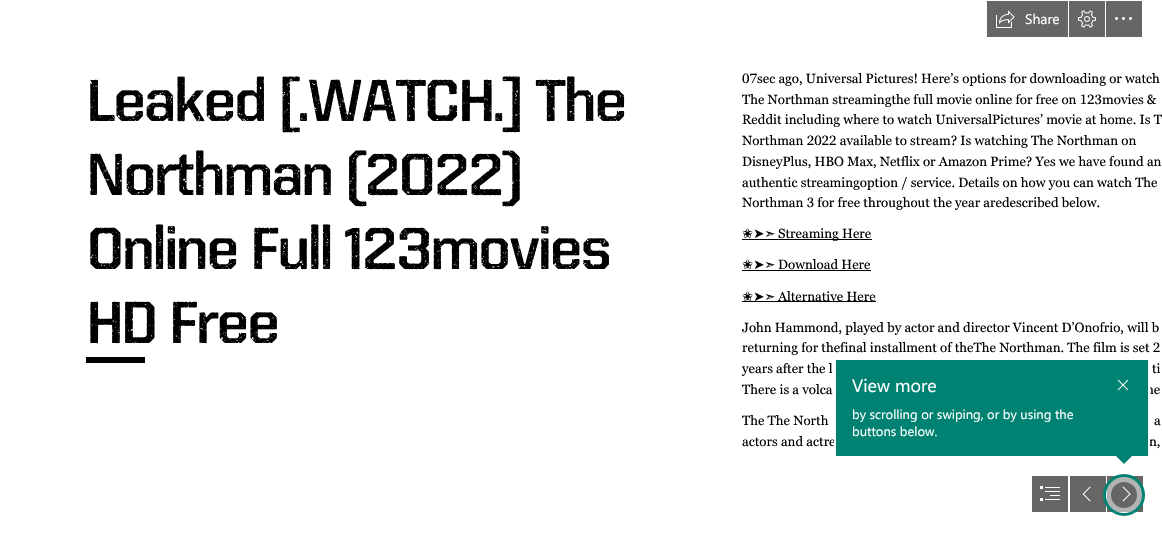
void draw(SkCanvas* canvas) {
    SkPaint paint;
    paint.setAntiAlias(true);
    auto spacedText = [&](const char* s, float x, float y, const SkFont& font, const SkPaint& ink, float letter, float word) {
        std::vector<SkGlyphID> glyphs(font.countText(s, strlen(s), SkTextEncoding::kUTF8));
        std::vector<float> xs(glyphs.size());
        font.textToGlyphs(s, strlen(s), SkTextEncoding::kUTF8, glyphs);
        font.getXPos(glyphs, xs, x);
        float extra = 0;
        for (size_t i = 0; i < glyphs.size(); i++) {
            xs[i] += extra;
            extra += letter + word * (glyphs[i] == font.unicharToGlyph(' '));
        }
        canvas->drawTextBlob(SkTextBlob::MakeFromPosHGlyphs(glyphs, xs, y, font), 0, 0, ink);
    };
    canvas->clear(0xFFFFFFFF);
    paint.setColor(0xFF666666);
    canvas->drawRect(SkRect::MakeXYWH(987, 1, 81, 36), paint);
    canvas->drawImageRect(SkImages::DeferredFromEncodedData(SkData::MakeFromFileName("img1.png")), SkRect::MakeXYWH(996, 10, 19, 18), SkSamplingOptions());
    SkFont font1(fontMgr->matchFamilyStyle("Segoe UI", SkFontStyle::Normal()), 14);
    font1.setSubpixel(true);
    paint.setColor(0xFFFFFFFF);
    canvas->drawString("Share", 1025, 24, font1, paint);
    paint.setColor(0xFF666666);
    canvas->drawRect(SkRect::MakeXYWH(1069, 1, 36, 36), paint);
    canvas->drawImageRect(SkImages::DeferredFromEncodedData(SkData::MakeFromFileName("img2.png")), SkRect::MakeXYWH(1078, 10, 18, 18), SkSamplingOptions());
    canvas->drawRect(SkRect::MakeXYWH(1106, 1, 36, 36), paint);
    canvas->drawImageRect(SkImages::DeferredFromEncodedData(SkData::MakeFromFileName("img3.png")), SkRect::MakeXYWH(1115, 17, 17, 3), SkSamplingOptions());
    SkFont font2(fontMgr->matchFamilyStyle("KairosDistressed", SkFontStyle::Normal()), 55.5f);
    font2.setSubpixel(true);
    paint.setColor(0xFF000000);
    spacedText("Leaked [.WATCH.] The", 86, 121, font2, paint, -3.5f, 0);
    spacedText("Northman (2022)", 86, 195, font2, paint, -3.5f, 0);
    spacedText("Online Full 123movies", 86, 269, font2, paint, -3.5f, 0);
    spacedText("HD Free", 86, 343, font2, paint, -3.5f, 0);
    canvas->drawRect(SkRect::MakeXYWH(86, 357, 59, 6), paint);
    SkFont font3(fontMgr->matchFamilyStyle("Georgia", SkFontStyle::Normal()), 13.3f);
    font3.setSubpixel(true);
    canvas->drawString("07sec ago, Universal Pictures! Here’s options for downloading or watch", 742, 83, font3, paint);
    canvas->drawString("The Northman streamingthe full movie online for free on 123movies &", 742, 104, font3, paint);
    canvas->drawString("Reddit including where to watch UniversalPictures’ movie at home. Is T", 742, 124, font3, paint);
    canvas->drawString("Northman 2022 available to stream? Is watching The Northman on", 742, 145, font3, paint);
    canvas->drawString("DisneyPlus, HBO Max, Netflix or Amazon Prime? Yes we have found an", 742, 166, font3, paint);
    canvas->drawString("authentic streamingoption / service. Details on how you can watch The", 742, 187, font3, paint);
    canvas->drawString("Northman 3 for free throughout the year aredescribed below.", 742, 207, font3, paint);
    SkFont font4(fontMgr->matchFamilyStyle("DejaVu Sans", SkFontStyle::Normal()), 13.3f);
    font4.setSubpixel(true);
    canvas->drawString("✬➤➣", 742, 238, font4, paint);
    canvas->drawRect(SkRect::MakeXYWH(742, 239, 130, 1), paint);
    canvas->drawString("Streaming Here", 778, 238, font3, paint);
    canvas->drawString("✬➤➣", 742, 269, font4, paint);
    canvas->drawRect(SkRect::MakeXYWH(742, 270, 129, 1), paint);
    canvas->drawString("Download Here", 778, 269, font3, paint);
    canvas->drawRect(SkRect::MakeXYWH(742, 301, 134, 1), paint);
    canvas->drawString("✬➤➣", 742, 301, font4, paint);
    canvas->drawString("Alternative Here", 778, 301, font3, paint);
    canvas->drawString("John Hammond, played by actor and director Vincent D’Onofrio, will b", 742, 332, font3, paint);
    canvas->drawString("returning for thefinal installment of theThe Northman. The film is set 2", 742, 352, font3, paint);
    canvas->drawString("years after the l", 742, 373, font3, paint);
    canvas->drawString("ti", 1152, 373, font3, paint);
    canvas->drawString("There is a volca", 742, 394, font3, paint);
    canvas->drawString("ne", 1146, 394, font3, paint);
    canvas->drawString("The The North", 742, 425, font3, paint);
    canvas->drawString("a", 1154, 425, font3, paint);
    canvas->drawString("actors and actre", 742, 446, font3, paint);
    canvas->drawString("n,", 1149, 446, font3, paint);
    paint.setColor(0xFF008272);
    canvas->drawRect(SkRect::MakeXYWH(835, 359, 314, 98), paint);
    paint.setStyle(SkPaint::kStroke_Style);
    paint.setStrokeWidth(2);
    paint.setColor(0xFFFFFFFF);
    canvas->drawRect(SkRect::MakeXYWH(835, 359, 314, 98), paint);
    SkFont font5(fontMgr->matchFamilyStyle("Segoe UI", SkFontStyle::Normal()), 18);
    font5.setSubpixel(true);
    paint.setStyle(SkPaint::kFill_Style);
    canvas->drawString("View more", 852, 392, font5, paint);
    SkFont font6(fontMgr->matchFamilyStyle("Segoe UI", SkFontStyle::Normal()), 13);
    font6.setSubpixel(true);
    canvas->drawString("by scrolling or swiping, or by using the", 852, 419, font6, paint);
    canvas->drawString("buttons below.", 852, 436, font6, paint);
    canvas->drawImageRect(SkImages::DeferredFromEncodedData(SkData::MakeFromFileName("img4.png")), SkRect::MakeXYWH(1117, 379, 12, 12), SkSamplingOptions());
    paint.setColor(0xFF008272);
    canvas->drawPath(SkPathBuilder().moveTo(1116, 456).lineTo(1132, 456).lineTo(1124, 464).close().detach(), paint);
    paint.setColor(0xFF666666);
    canvas->drawRect(SkRect::MakeXYWH(1070, 476, 36, 36), paint);
    canvas->drawRect(SkRect::MakeXYWH(1107, 476, 36, 36), paint);
    canvas->drawImageRect(SkImages::DeferredFromEncodedData(SkData::MakeFromFileName("img7.png")), SkRect::MakeXYWH(1122, 486, 9, 16), SkSamplingOptions());
    paint.setStyle(SkPaint::kStroke_Style);
    paint.setStrokeWidth(7);
    paint.setColor(0x80FFFFFF);
    canvas->drawCircle(1124, 495, 16.5f, paint);
    paint.setStrokeWidth(3);
    paint.setColor(0xFF008272);
    canvas->drawCircle(1124, 495, 19.5f, paint);
    paint.setStyle(SkPaint::kFill_Style);
    paint.setColor(0xFF666666);
    canvas->drawRect(SkRect::MakeXYWH(1032, 476, 36, 36), paint);
    canvas->drawImageRect(SkImages::DeferredFromEncodedData(SkData::MakeFromFileName("img5.png")), SkRect::MakeXYWH(1040, 486, 20, 15), SkSamplingOptions());
    canvas->drawImageRect(SkImages::DeferredFromEncodedData(SkData::MakeFromFileName("img6.png")), SkRect::MakeXYWH(1082, 486, 9, 16), SkSamplingOptions());
}
